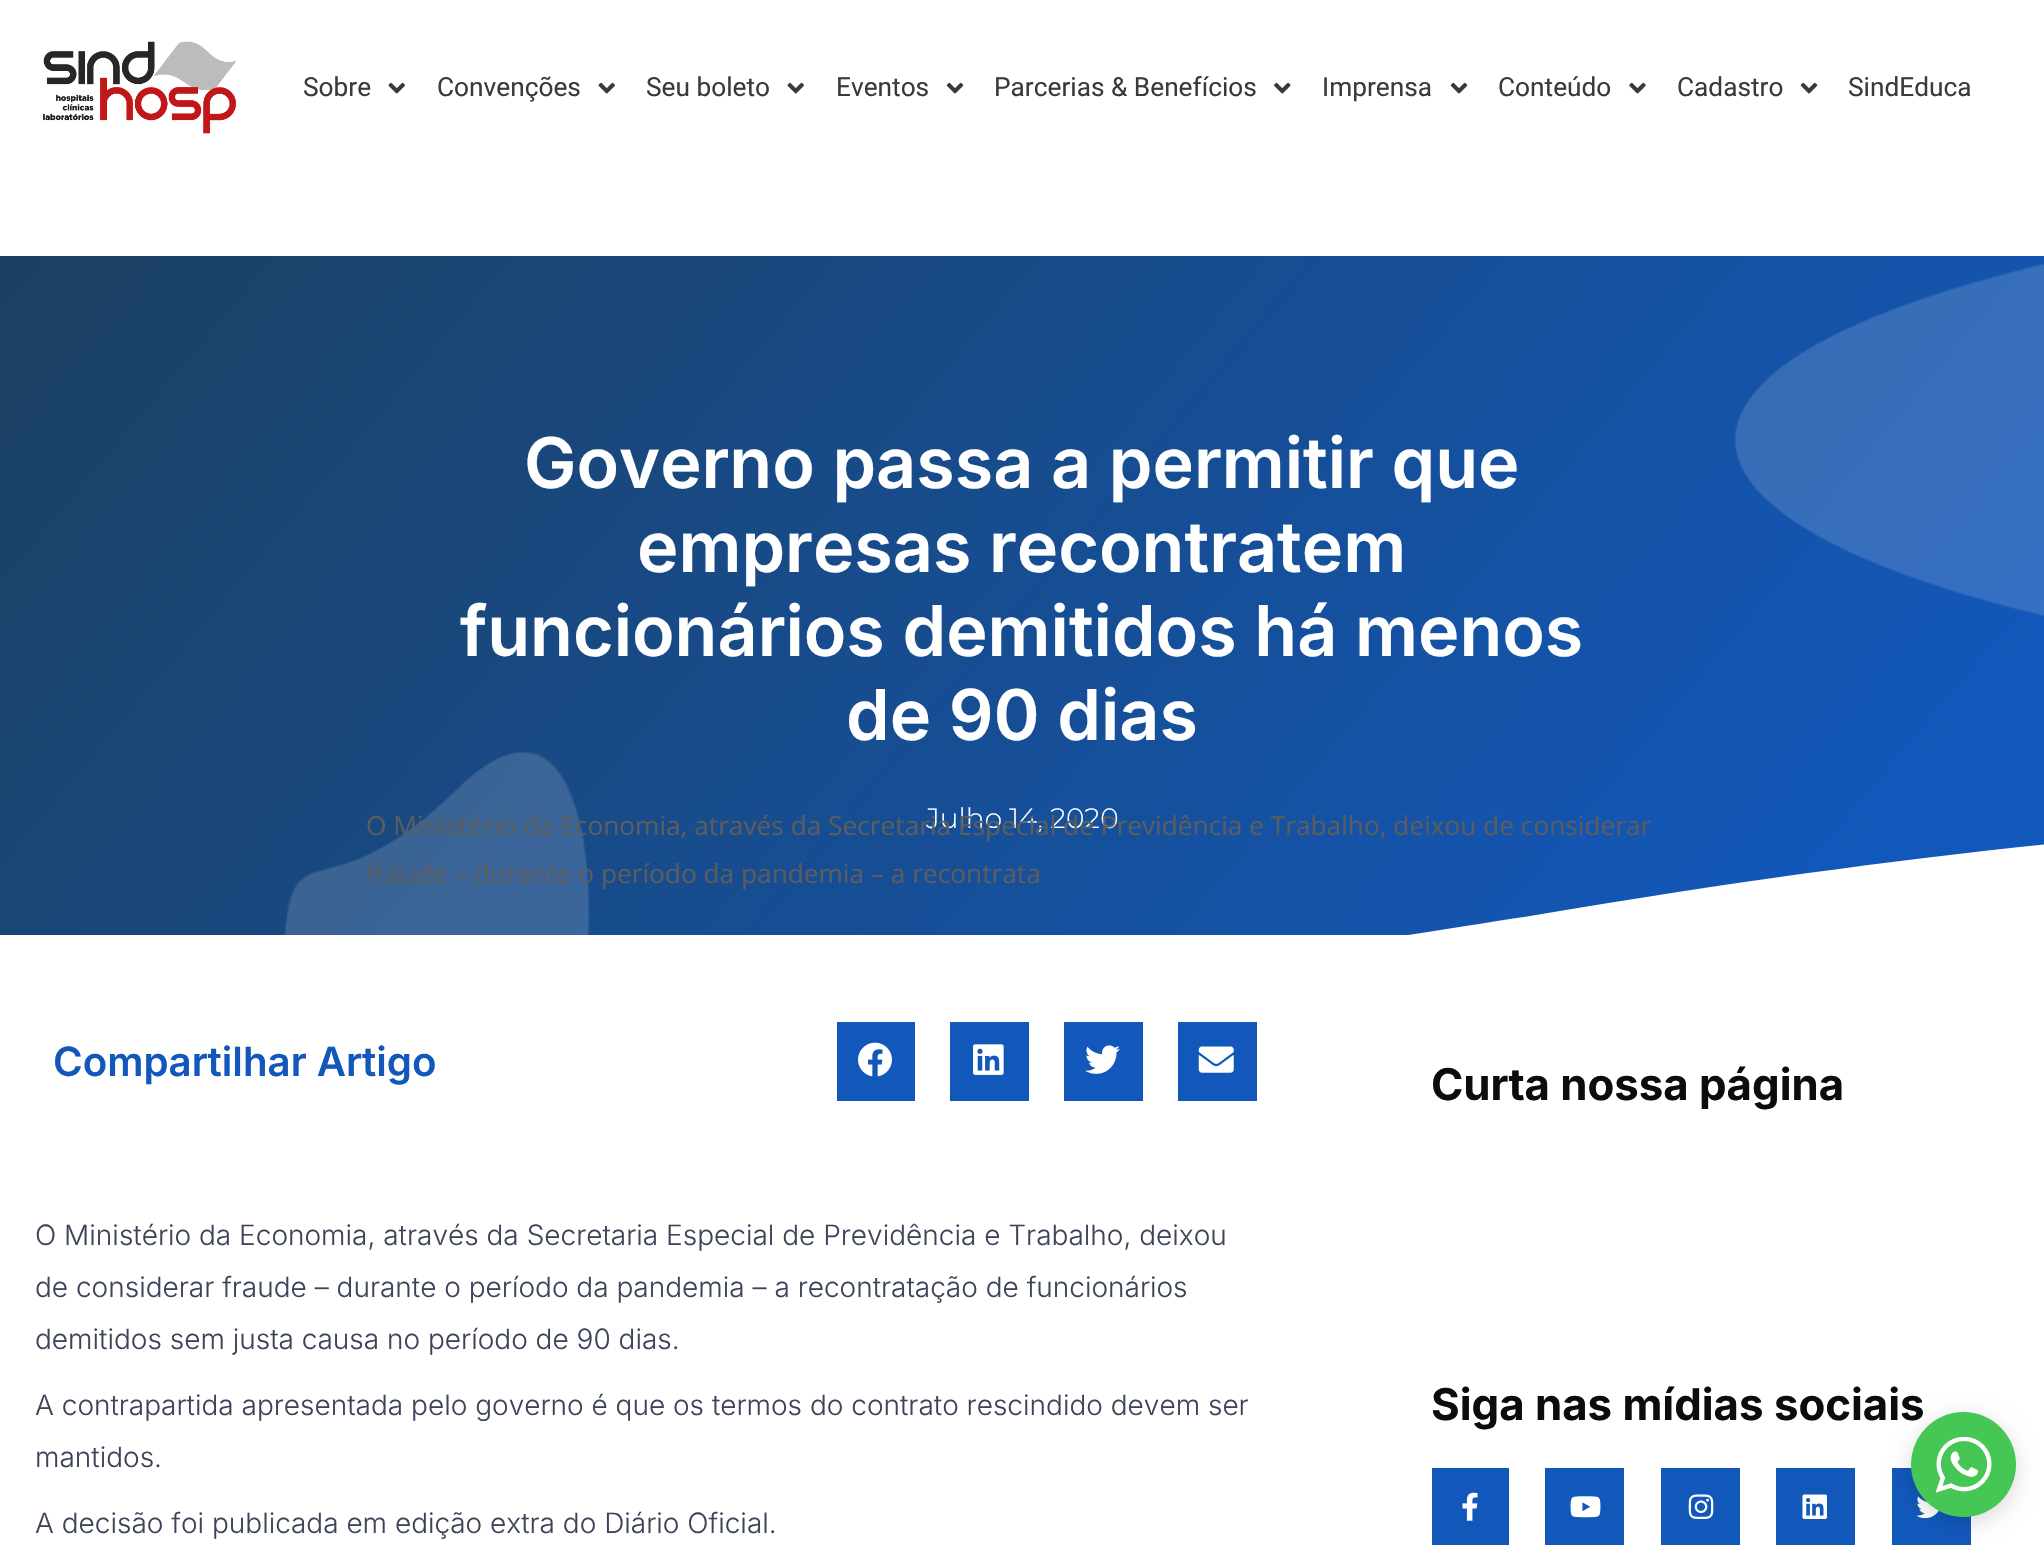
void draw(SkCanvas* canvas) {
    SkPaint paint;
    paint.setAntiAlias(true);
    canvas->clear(0xFFFFFFFF);
    canvas->drawImageRect(SkImages::DeferredFromEncodedData(SkData::MakeFromFileName("img1.png")), SkRect::MakeXYWH(43, 41, 193, 93), SkSamplingOptions());
    SkFont font1(fontMgr->matchFamilyStyle("Roboto", SkFontStyle::Normal()), 26.25f);
    font1.setSubpixel(true);
    paint.setColor(0xFF3A3A3A);
    canvas->drawString("Sobre", 303, 96, font1, paint);
    canvas->drawImageRect(SkImages::DeferredFromEncodedData(SkData::MakeFromFileName("img2.png")), SkRect::MakeXYWH(388, 82, 17, 12), SkSamplingOptions());
    canvas->drawString("Convenções", 437, 96, font1, paint);
    canvas->drawImageRect(SkImages::DeferredFromEncodedData(SkData::MakeFromFileName("img2.png")), SkRect::MakeXYWH(598, 82, 17, 12), SkSamplingOptions());
    canvas->drawString("Seu boleto", 646, 96, font1, paint);
    canvas->drawImageRect(SkImages::DeferredFromEncodedData(SkData::MakeFromFileName("img2.png")), SkRect::MakeXYWH(787, 82, 17, 12), SkSamplingOptions());
    canvas->drawString("Eventos", 836, 96, font1, paint);
    canvas->drawImageRect(SkImages::DeferredFromEncodedData(SkData::MakeFromFileName("img3.png")), SkRect::MakeXYWH(946, 82, 18, 12), SkSamplingOptions());
    canvas->drawString("Parcerias & Benefícios", 994, 96, font1, paint);
    canvas->drawImageRect(SkImages::DeferredFromEncodedData(SkData::MakeFromFileName("img4.png")), SkRect::MakeXYWH(1274, 82, 17, 12), SkSamplingOptions());
    canvas->drawString("Imprensa", 1322, 96, font1, paint);
    canvas->drawImageRect(SkImages::DeferredFromEncodedData(SkData::MakeFromFileName("img3.png")), SkRect::MakeXYWH(1450, 82, 18, 12), SkSamplingOptions());
    canvas->drawString("Conteúdo", 1498, 96, font1, paint);
    canvas->drawImageRect(SkImages::DeferredFromEncodedData(SkData::MakeFromFileName("img5.png")), SkRect::MakeXYWH(1629, 82, 17, 12), SkSamplingOptions());
    canvas->drawString("Cadastro", 1677, 96, font1, paint);
    canvas->drawImageRect(SkImages::DeferredFromEncodedData(SkData::MakeFromFileName("img3.png")), SkRect::MakeXYWH(1800, 82, 18, 12), SkSamplingOptions());
    canvas->drawString("SindEduca", 1848, 96, font1, paint);
    {
        const SkColor colors[] = {0xFF1C4060, 0xFF1258BB};
        const float stops[] = {0, 0.89f};
        const SkPoint ends[] = {{236, -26}, {1808, 1293}};
        paint.setShader(SkGradientShader::MakeLinear(ends, colors, stops, 2, SkTileMode::kClamp));
        paint.setAlpha(255);
    }
    canvas->drawRect(SkRect::MakeXYWH(0, 256, 2044, 679), paint);
    canvas->drawImageRect(SkImages::DeferredFromEncodedData(SkData::MakeFromFileName("img6.png")), SkRect::MakeXYWH(284, 263, 1760, 672), SkSamplingOptions());
    SkFont font2(fontMgr->matchFamilyStyle("Inter", SkFontStyle(600, SkFontStyle::kNormal_Width, SkFontStyle::kUpright_Slant)), 70);
    font2.setSubpixel(true);
    paint.setShader(nullptr);
    paint.setColor(0xFFFFFFFF);
    canvas->drawString("Governo passa a permitir que", 524, 488, font2, paint);
    canvas->drawString("empresas recontratem", 637, 572, font2, paint);
    canvas->drawString("funcionários demitidos há menos", 460, 656, font2, paint);
    canvas->drawString("de 90 dias", 846, 740, font2, paint);
    SkFont font3(fontMgr->matchFamilyStyle("Montserrat", SkFontStyle(300, SkFontStyle::kNormal_Width, SkFontStyle::kUpright_Slant)), 28);
    font3.setSubpixel(true);
    canvas->drawString("Julho 14, 2020", 926, 828, font3, paint);
    canvas->drawPath(SkPathBuilder().moveTo(607, 1000).cubicTo(727, 1005, 881, 999, 1008, 988).cubicTo(1134, 978, 1385, 939, 1542, 914).cubicTo(1945, 846, 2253, 820, 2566, 809).cubicTo(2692, 805, 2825, 802, 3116, 814).cubicTo(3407, 827, 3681, 868, 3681, 868).lineTo(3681, 1013).lineTo(-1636, 1013).lineTo(-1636, 950).cubicTo(-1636, 950, -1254, 881, -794, 886).cubicTo(-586, 887, -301, 900, -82, 933).cubicTo(31, 950, 196, 971, 342, 983).cubicTo(487, 997, 552, 998, 607, 1000).close().detach(), paint);
    SkFont font4(fontMgr->matchFamilyStyle("Open Sans", SkFontStyle::Normal()), 26.25f);
    font4.setSubpixel(true);
    paint.setColor(0xFF5D5D5D);
    canvas->drawString("O Ministério da Economia, através da Secretaria Especial de Previdência e Trabalho, deixou de considerar", 366, 835, font4, paint);
    canvas->drawString("fraude – durante o período da pandemia – a recontrata", 366, 883, font4, paint);
    SkFont font5(fontMgr->matchFamilyStyle("Inter", SkFontStyle(600, SkFontStyle::kNormal_Width, SkFontStyle::kUpright_Slant)), 40.25f);
    font5.setSubpixel(true);
    paint.setColor(0xFF1258BB);
    canvas->drawString("Compartilhar Artigo", 53, 1076, font5, paint);
    canvas->drawRect(SkRect::MakeXYWH(837, 1022, 78, 79), paint);
    canvas->drawImageRect(SkImages::DeferredFromEncodedData(SkData::MakeFromFileName("img7.png")), SkRect::MakeXYWH(858, 1042, 34, 35), SkSamplingOptions());
    canvas->drawRect(SkRect::MakeXYWH(950, 1022, 79, 79), paint);
    canvas->drawImageRect(SkImages::DeferredFromEncodedData(SkData::MakeFromFileName("img8.png")), SkRect::MakeXYWH(973, 1044, 31, 31), SkSamplingOptions());
    canvas->drawRect(SkRect::MakeXYWH(1064, 1022, 79, 79), paint);
    canvas->drawImageRect(SkImages::DeferredFromEncodedData(SkData::MakeFromFileName("img9.png")), SkRect::MakeXYWH(1085, 1045, 35, 29), SkSamplingOptions());
    canvas->drawRect(SkRect::MakeXYWH(1178, 1022, 79, 79), paint);
    canvas->drawImageRect(SkImages::DeferredFromEncodedData(SkData::MakeFromFileName("img10.png")), SkRect::MakeXYWH(1198, 1046, 36, 27), SkSamplingOptions());
    SkFont font6(fontMgr->matchFamilyStyle("Inter", SkFontStyle(300, SkFontStyle::kNormal_Width, SkFontStyle::kUpright_Slant)), 28);
    font6.setSubpixel(true);
    paint.setColor(0xFF3D4459);
    canvas->drawString("O Ministério da Economia, através da Secretaria Especial de Previdência e Trabalho, deixou", 35, 1245, font6, paint);
    canvas->drawString("de considerar fraude – durante o período da pandemia – a recontratação de funcionários", 35, 1297, font6, paint);
    canvas->drawString("demitidos sem justa causa no período de 90 dias.", 35, 1349, font6, paint);
    canvas->drawString("A contrapartida apresentada pelo governo é que os termos do contrato rescindido devem ser", 35, 1415, font6, paint);
    canvas->drawString("mantidos.", 35, 1467, font6, paint);
    canvas->drawString("A decisão foi publicada em edição extra do Diário Oficial.", 35, 1533, font6, paint);
    SkFont font7(fontMgr->matchFamilyStyle("Inter", SkFontStyle::Bold()), 43.75f);
    font7.setSubpixel(true);
    paint.setColor(0xFF0C0C0C);
    canvas->drawString("Curta nossa página", 1431, 1100, font7, paint);
    canvas->drawString("Siga nas mídias sociais", 1431, 1420, font7, paint);
    paint.setColor(0xFF1258BB);
    canvas->drawRect(SkRect::MakeXYWH(1432, 1468, 77, 77), paint);
    canvas->drawImageRect(SkImages::DeferredFromEncodedData(SkData::MakeFromFileName("img11.png")), SkRect::MakeXYWH(1462, 1492, 16, 29), SkSamplingOptions());
    canvas->drawRect(SkRect::MakeXYWH(1545, 1468, 79, 77), paint);
    canvas->drawImageRect(SkImages::DeferredFromEncodedData(SkData::MakeFromFileName("img12.png")), SkRect::MakeXYWH(1570, 1496, 31, 22), SkSamplingOptions());
    canvas->drawRect(SkRect::MakeXYWH(1661, 1468, 79, 77), paint);
    canvas->drawImageRect(SkImages::DeferredFromEncodedData(SkData::MakeFromFileName("img13.png")), SkRect::MakeXYWH(1688, 1494, 26, 25), SkSamplingOptions());
    canvas->drawRect(SkRect::MakeXYWH(1776, 1468, 79, 77), paint);
    canvas->drawImageRect(SkImages::DeferredFromEncodedData(SkData::MakeFromFileName("img14.png")), SkRect::MakeXYWH(1802, 1494, 25, 25), SkSamplingOptions());
    canvas->drawRect(SkRect::MakeXYWH(1892, 1468, 79, 77), paint);
    canvas->drawImageRect(SkImages::DeferredFromEncodedData(SkData::MakeFromFileName("img15.png")), SkRect::MakeXYWH(1916, 1496, 23, 23), SkSamplingOptions());
    paint.setColor(0x26000000);
    paint.setMaskFilter(SkMaskFilter::MakeBlur(kNormal_SkBlurStyle, 10.5f));
    canvas->drawRoundRect(SkRect::MakeXYWH(1911, 1418, 105, 105), 52.5f, 52.5f, paint);
    paint.setMaskFilter(nullptr);
    paint.setColor(0xFF45C655);
    canvas->drawCircle(1963.5f, 1464.5f, 52.5f, paint);
    canvas->drawImageRect(SkImages::DeferredFromEncodedData(SkData::MakeFromFileName("img16.png")), SkRect::MakeXYWH(1936, 1437, 56, 56), SkSamplingOptions());
}
